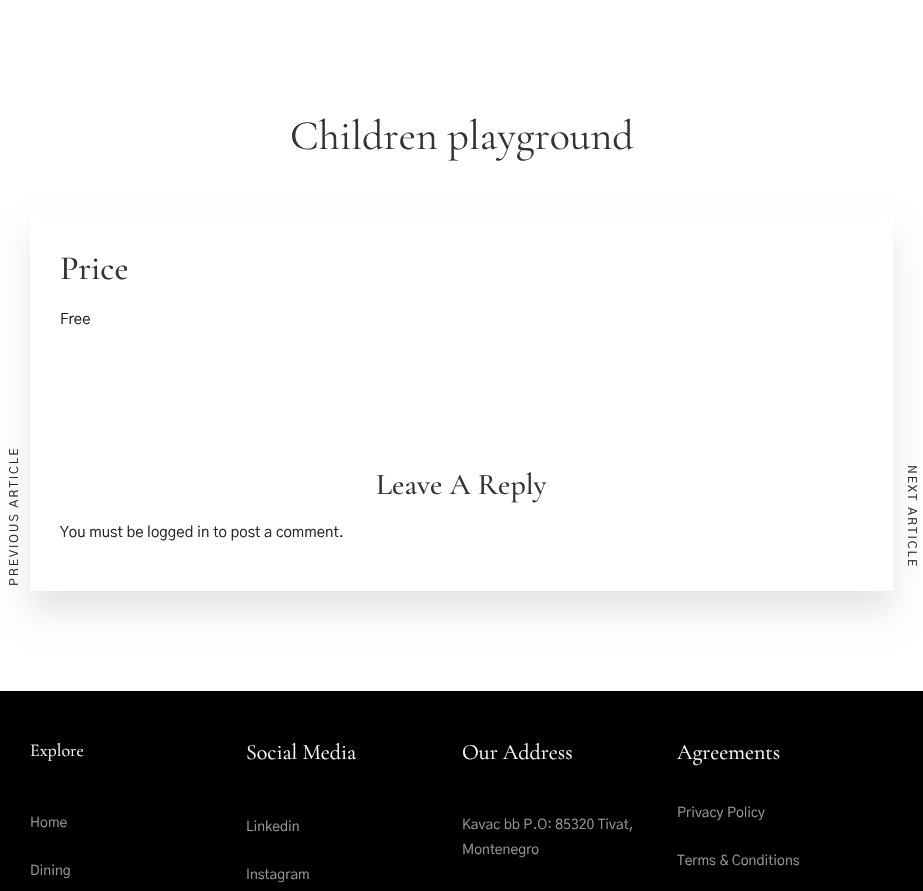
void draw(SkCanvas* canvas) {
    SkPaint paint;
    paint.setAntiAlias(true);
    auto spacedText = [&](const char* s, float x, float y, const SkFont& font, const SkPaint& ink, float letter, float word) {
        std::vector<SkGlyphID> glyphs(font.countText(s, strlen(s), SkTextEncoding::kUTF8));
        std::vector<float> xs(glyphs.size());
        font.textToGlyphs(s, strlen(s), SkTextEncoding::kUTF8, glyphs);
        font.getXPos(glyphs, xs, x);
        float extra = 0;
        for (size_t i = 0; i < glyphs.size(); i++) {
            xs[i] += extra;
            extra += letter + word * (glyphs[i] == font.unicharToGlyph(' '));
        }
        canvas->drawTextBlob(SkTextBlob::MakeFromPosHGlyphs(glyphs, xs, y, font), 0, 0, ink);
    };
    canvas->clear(0xFFFFFFFF);
    SkFont font1(fontMgr->matchFamilyStyle("Cormorant Garamond", SkFontStyle::Normal()), 42);
    font1.setSubpixel(true);
    paint.setColor(0xFF333333);
    canvas->drawString("Children playground", 290, 149, font1, paint);
    canvas->save();
    canvas->clipPath(SkPathBuilder(SkPathFillType::kEvenOdd).moveTo(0, 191).lineTo(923, 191).lineTo(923, 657).lineTo(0, 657).close().moveTo(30, 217).lineTo(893, 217).lineTo(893, 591).lineTo(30, 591).close().detach(), true);
    paint.setColor(0x1A010101);
    paint.setMaskFilter(SkMaskFilter::MakeBlur(kNormal_SkBlurStyle, 15));
    canvas->drawRect(SkRect::MakeXYWH(30, 237, 863, 374), paint);
    paint.setMaskFilter(nullptr);
    canvas->restore();
    SkFont font2(fontMgr->matchFamilyStyle("Cormorant Garamond", SkFontStyle(500, SkFontStyle::kNormal_Width, SkFontStyle::kUpright_Slant)), 34);
    font2.setSubpixel(true);
    paint.setColor(0xFF333333);
    canvas->drawString("Price", 60, 279, font2, paint);
    SkFont font3(fontMgr->matchFamilyStyle("Gothic A1", SkFontStyle::Normal()), 15);
    font3.setSubpixel(true);
    paint.setColor(0xFF222222);
    canvas->drawString("Free", 60, 324, font3, paint);
    SkFont font4(fontMgr->matchFamilyStyle("Gothic A1", SkFontStyle::Normal()), 12);
    font4.setSubpixel(true);
    canvas->save();
    canvas->rotate(-90, 18, 586);
    spacedText("PREVIOUS ARTICLE", 18, 586, font4, paint, 2, 0);
    canvas->restore();
    SkFont font5(fontMgr->matchFamilyStyle("Cormorant Garamond", SkFontStyle(500, SkFontStyle::kNormal_Width, SkFontStyle::kUpright_Slant)), 30);
    font5.setSubpixel(true);
    paint.setColor(0xFF333333);
    canvas->drawString("Leave A Reply", 376, 494, font5, paint);
    paint.setColor(0xFF222222);
    canvas->drawString("You must be logged in to post a comment.", 60, 537, font3, paint);
    canvas->save();
    canvas->rotate(90, 908, 465);
    spacedText("NEXT ARTICLE", 908, 465, font4, paint, 2, 0);
    canvas->restore();
    paint.setColor(0xFF000000);
    canvas->drawRect(SkRect::MakeXYWH(0, 691, 923, 200), paint);
    SkFont font6(fontMgr->matchFamilyStyle("Cormorant Garamond", SkFontStyle::Normal()), 18);
    font6.setSubpixel(true);
    paint.setColor(0xFFFFFFFF);
    canvas->drawString("Explore", 30, 756, font6, paint);
    SkFont font7(fontMgr->matchFamilyStyle("Gothic A1", SkFontStyle::Normal()), 14);
    font7.setSubpixel(true);
    paint.setColor(0xFF9B9B9B);
    canvas->drawString("Home", 30, 827, font7, paint);
    canvas->drawString("Dining", 30, 875, font7, paint);
    SkFont font8(fontMgr->matchFamilyStyle("Cormorant Garamond", SkFontStyle::Normal()), 22);
    font8.setSubpixel(true);
    paint.setColor(0xFFFFFFFF);
    canvas->drawString("Social Media", 246, 759, font8, paint);
    paint.setColor(0xFF9B9B9B);
    canvas->drawString("Linkedin", 246, 831, font7, paint);
    canvas->drawString("Instagram", 246, 879, font7, paint);
    paint.setColor(0xFFFFFFFF);
    canvas->drawString("Our Address", 462, 759, font8, paint);
    paint.setColor(0xFF9B9B9B);
    canvas->drawString("Kavac bb P.O: 85320 Tivat,", 462, 829, font7, paint);
    canvas->drawString("Montenegro", 462, 854, font7, paint);
    paint.setColor(0xFFFFFFFF);
    canvas->drawString("Agreements", 677, 759, font8, paint);
    paint.setColor(0xFF9B9B9B);
    canvas->drawString("Privacy Policy", 677, 817, font7, paint);
    canvas->drawString("Terms & Conditions", 677, 865, font7, paint);
}
